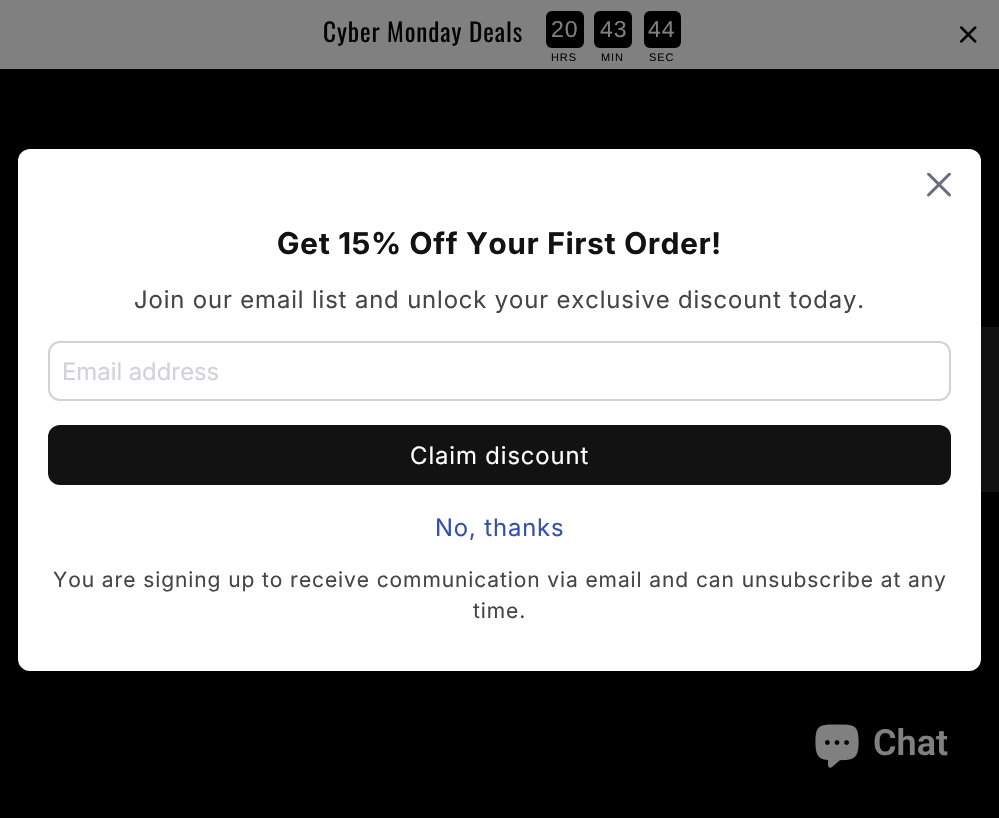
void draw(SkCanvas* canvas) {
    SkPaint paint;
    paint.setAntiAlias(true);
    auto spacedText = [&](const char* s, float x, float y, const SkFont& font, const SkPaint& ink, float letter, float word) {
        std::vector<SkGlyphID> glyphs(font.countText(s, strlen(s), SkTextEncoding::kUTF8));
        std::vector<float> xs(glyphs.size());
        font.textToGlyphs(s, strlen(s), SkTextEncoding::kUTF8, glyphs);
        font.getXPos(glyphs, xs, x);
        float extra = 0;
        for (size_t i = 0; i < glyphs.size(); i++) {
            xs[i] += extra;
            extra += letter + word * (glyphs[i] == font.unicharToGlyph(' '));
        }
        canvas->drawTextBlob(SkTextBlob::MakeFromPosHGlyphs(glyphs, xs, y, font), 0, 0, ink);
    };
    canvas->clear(0xFF000000);
    paint.setColor(0xFF808080);
    canvas->drawRect(SkRect::MakeXYWH(0, 0, 999, 69), paint);
    SkFont font1(fontMgr->matchFamilyStyle("Oswald", SkFontStyle::Normal()), 25.25f);
    font1.setSubpixel(true);
    paint.setColor(0xFF040404);
    spacedText("Cyber Monday Deals", 323, 42, font1, paint, 0.9f, 0);
    paint.setColor(0xFF000000);
    canvas->drawRoundRect(SkRect::MakeXYWH(546, 11, 38, 37), 6, 6, paint);
    SkFont font2(fontMgr->matchFamilyStyle("Liberation Sans", SkFontStyle::Normal()), 23);
    font2.setSubpixel(true);
    paint.setColor(0xFF808080);
    spacedText("20", 551, 37, font2, paint, 0.9f, 0);
    paint.setColor(0xFF000000);
    canvas->drawRoundRect(SkRect::MakeXYWH(594, 11, 38, 37), 6, 6, paint);
    paint.setColor(0xFF808080);
    spacedText("43", 600, 37, font2, paint, 0.9f, 0);
    paint.setColor(0xFF000000);
    canvas->drawRoundRect(SkRect::MakeXYWH(644, 11, 37, 37), 6, 6, paint);
    paint.setColor(0xFF808080);
    spacedText("44", 648, 37, font2, paint, 0.9f, 0);
    SkFont font3(fontMgr->matchFamilyStyle("Liberation Sans", SkFontStyle::Normal()), 11);
    font3.setSubpixel(true);
    paint.setColor(0xFF040404);
    spacedText("HRS", 551, 61, font3, paint, 0.9f, 0);
    spacedText("MIN", 601, 61, font3, paint, 0.9f, 0);
    spacedText("SEC", 649, 61, font3, paint, 0.9f, 0);
    canvas->drawImageRect(SkImages::DeferredFromEncodedData(SkData::MakeFromFileName("img1.png")), SkRect::MakeXYWH(960, 26, 17, 17), SkSamplingOptions());
    paint.setColor(0xFF111111);
    canvas->drawPath(SkPathBuilder().moveTo(948, 486).lineTo(948, 333).cubicTo(948, 330, 950, 327, 954, 327).lineTo(999, 327).lineTo(999, 492).lineTo(954, 492).cubicTo(950, 492, 948, 489, 948, 486).close().detach(), paint);
    paint.setColor(0xFFFFFFFF);
    canvas->drawRoundRect(SkRect::MakeXYWH(18, 149, 963, 522), 12, 12, paint);
    canvas->drawImageRect(SkImages::DeferredFromEncodedData(SkData::MakeFromFileName("img2.png")), SkRect::MakeXYWH(927, 173, 24, 24), SkSamplingOptions());
    SkFont font4(fontMgr->matchFamilyStyle("Inter", SkFontStyle::Bold()), 30);
    font4.setSubpixel(true);
    paint.setColor(0xFF121212);
    spacedText("Get 15% Off Your First Order!", 277, 254, font4, paint, 0.9f, 0);
    SkFont font5(fontMgr->matchFamilyStyle("Inter", SkFontStyle::Normal()), 24);
    font5.setSubpixel(true);
    paint.setColor(0xFF454545);
    spacedText("Join our email list and unlock your exclusive discount today.", 134, 308, font5, paint, 0.9f, 0);
    paint.setStyle(SkPaint::kStroke_Style);
    paint.setStrokeWidth(2);
    paint.setColor(0xFFD1D1DB);
    canvas->drawRoundRect(SkRect::MakeXYWH(49, 342, 901, 58), 11, 11, paint);
    paint.setStyle(SkPaint::kFill_Style);
    canvas->drawString("Email address", 62, 380, font5, paint);
    paint.setColor(0xFF121212);
    canvas->drawRoundRect(SkRect::MakeXYWH(48, 425, 903, 60), 12, 12, paint);
    paint.setColor(0xFFFFFFFF);
    spacedText("Claim discount", 410, 464, font5, paint, 0.9f, 0);
    paint.setColor(0xFF334FB4);
    spacedText("No, thanks", 435, 536, font5, paint, 0.9f, 0);
    SkFont font6(fontMgr->matchFamilyStyle("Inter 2", SkFontStyle::Normal()), 21);
    font6.setSubpixel(true);
    paint.setColor(0xFF454545);
    spacedText("You are signing up to receive communication via email and can unsubscribe at any", 53, 587, font6, paint, 0.9f, 0);
    spacedText("time.", 473, 618, font6, paint, 0.9f, 0);
    canvas->drawImageRect(SkImages::DeferredFromEncodedData(SkData::MakeFromFileName("img3.png")), SkRect::MakeXYWH(815, 724, 44, 44), SkSamplingOptions());
    SkFont font7(fontMgr->matchFamilyStyle("Roboto", SkFontStyle(600, SkFontStyle::kNormal_Width, SkFontStyle::kUpright_Slant)), 36);
    font7.setSubpixel(true);
    paint.setColor(0xFF808080);
    canvas->drawString("Chat", 873, 755, font7, paint);
}
